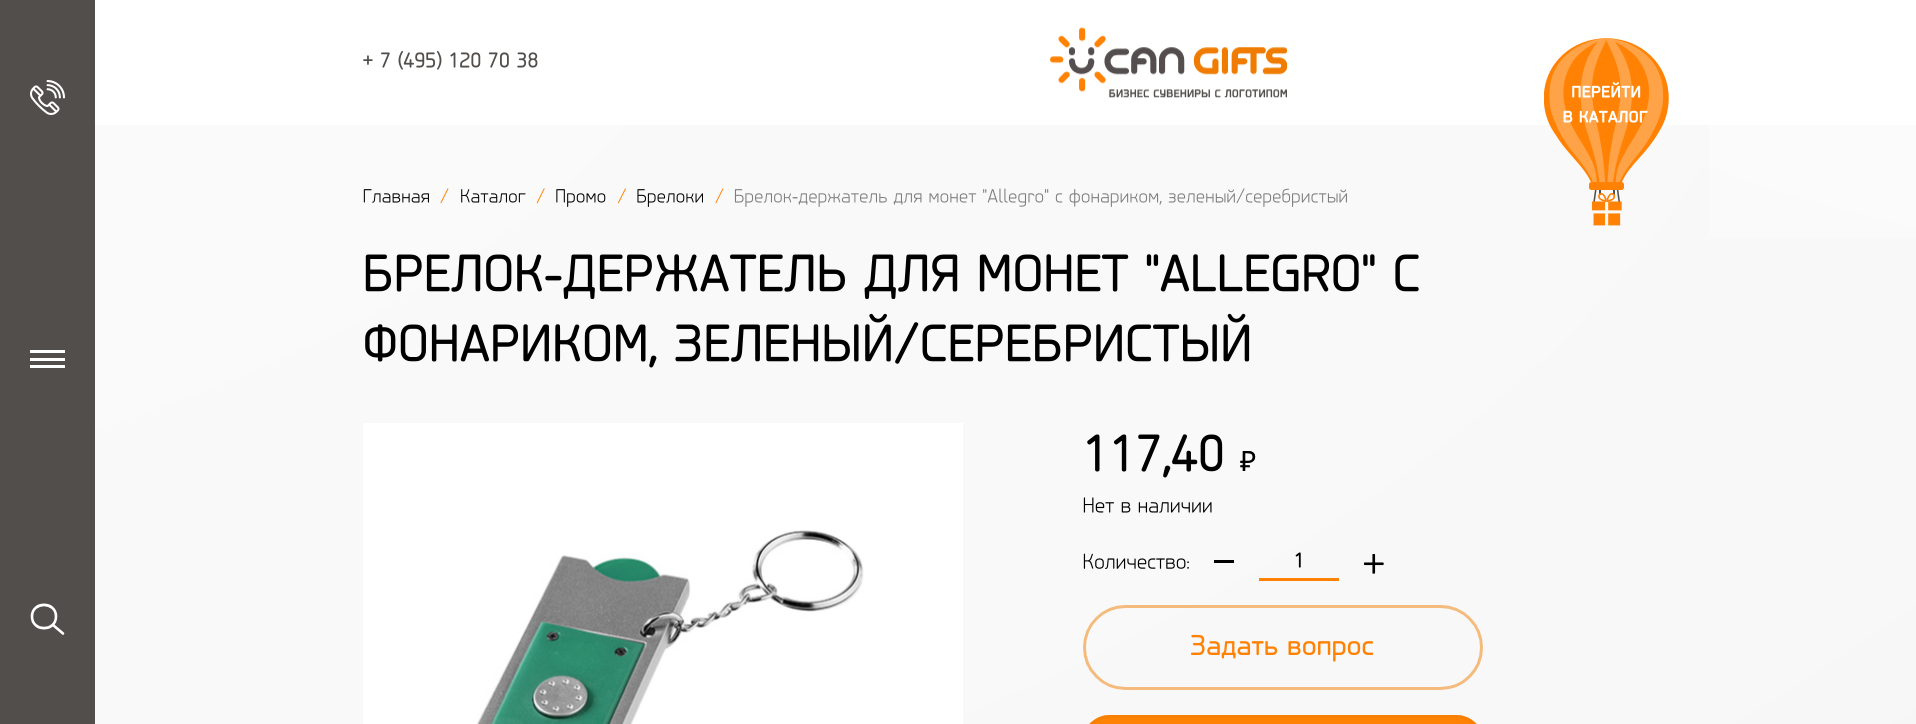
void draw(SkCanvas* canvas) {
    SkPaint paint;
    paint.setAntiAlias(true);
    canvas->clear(0xFFFFFFFF);
    {
        const SkColor colors[] = {0xFFFBFBFB, 0xFFF8F8F8, 0xFFEDEDED};
        const float stops[] = {0, 0.69f, 1};
        SkMatrix m = SkMatrix::Translate(-841, -132).preScale(4574, 2023);
        paint.setShader(SkGradientShader::MakeRadial({0, 0}, 1, colors, stops, 3, SkTileMode::kClamp, 0, &m));
        paint.setAlpha(255);
    }
    canvas->drawRect(SkRect::MakeXYWH(95, 125, 1821, 599), paint);
    {
        const SkColor colors[] = {0xA1FFFFFF, 0x00FFFFFF};
        const float stops[] = {0, 1};
        SkMatrix m = SkMatrix::Translate(2268, -416).preScale(2653, 1674);
        paint.setShader(SkGradientShader::MakeRadial({0, 0}, 1, colors, stops, 2, SkTileMode::kClamp, 0, &m));
        paint.setAlpha(255);
    }
    canvas->drawRect(SkRect::MakeXYWH(1709, 125, 207, 113), paint);
    paint.setShader(nullptr);
    paint.setColor(0xFF514E4B);
    canvas->drawRect(SkRect::MakeXYWH(0, 0, 95, 724), paint);
    canvas->drawImageRect(SkImages::DeferredFromEncodedData(SkData::MakeFromFileName("img1.png")), SkRect::MakeXYWH(30, 80, 35, 35), SkSamplingOptions());
    paint.setColor(0xFFFFFFFF);
    canvas->drawRect(SkRect::MakeXYWH(30, 358, 35, 3), paint);
    canvas->drawRect(SkRect::MakeXYWH(30, 350, 35, 3), paint);
    canvas->drawRect(SkRect::MakeXYWH(30, 365, 35, 3), paint);
    paint.setStyle(SkPaint::kStroke_Style);
    paint.setStrokeWidth(2.6f);
    canvas->drawPath(SkPathBuilder().moveTo(56, 616.5f).cubicTo(56, 632, 32, 632, 32, 616.5f).cubicTo(32, 601, 56, 601, 56, 616.5f).close().detach(), paint);
    paint.setStrokeCap(SkPaint::kRound_Cap);
    canvas->drawPath(SkPathBuilder().moveTo(53, 625).lineTo(63, 633.5f).detach(), paint);
    canvas->drawImageRect(SkImages::DeferredFromEncodedData(SkData::MakeFromFileName("img2.png")), SkRect::MakeXYWH(363, 50, 175, 20), SkSamplingOptions());
    canvas->drawImageRect(SkImages::DeferredFromEncodedData(SkData::MakeFromFileName("img3.png")), SkRect::MakeXYWH(1050, 27, 238, 71), SkSamplingOptions());
    canvas->drawImageRect(SkImages::DeferredFromEncodedData(SkData::MakeFromFileName("img4.png")), SkRect::MakeXYWH(1544, 38, 125, 188), SkSamplingOptions());
    canvas->drawImageRect(SkImages::DeferredFromEncodedData(SkData::MakeFromFileName("img5.png")), SkRect::MakeXYWH(1572, 82, 69, 16), SkSamplingOptions());
    canvas->drawImageRect(SkImages::DeferredFromEncodedData(SkData::MakeFromFileName("img6.png")), SkRect::MakeXYWH(1563, 110, 85, 13), SkSamplingOptions());
    canvas->drawImageRect(SkImages::DeferredFromEncodedData(SkData::MakeFromFileName("img7.png")), SkRect::MakeXYWH(363, 189, 66, 14), SkSamplingOptions());
    canvas->drawImageRect(SkImages::DeferredFromEncodedData(SkData::MakeFromFileName("img8.png")), SkRect::MakeXYWH(440, 188, 9, 16), SkSamplingOptions());
    canvas->drawImageRect(SkImages::DeferredFromEncodedData(SkData::MakeFromFileName("img9.png")), SkRect::MakeXYWH(461, 189, 65, 14), SkSamplingOptions());
    canvas->drawImageRect(SkImages::DeferredFromEncodedData(SkData::MakeFromFileName("img10.png")), SkRect::MakeXYWH(536, 188, 9, 16), SkSamplingOptions());
    canvas->drawImageRect(SkImages::DeferredFromEncodedData(SkData::MakeFromFileName("img11.png")), SkRect::MakeXYWH(556, 189, 50, 18), SkSamplingOptions());
    canvas->drawImageRect(SkImages::DeferredFromEncodedData(SkData::MakeFromFileName("img12.png")), SkRect::MakeXYWH(618, 188, 8, 16), SkSamplingOptions());
    canvas->drawImageRect(SkImages::DeferredFromEncodedData(SkData::MakeFromFileName("img13.png")), SkRect::MakeXYWH(637, 189, 66, 18), SkSamplingOptions());
    canvas->drawImageRect(SkImages::DeferredFromEncodedData(SkData::MakeFromFileName("img14.png")), SkRect::MakeXYWH(715, 188, 9, 16), SkSamplingOptions());
    canvas->drawImageRect(SkImages::DeferredFromEncodedData(SkData::MakeFromFileName("img15.png")), SkRect::MakeXYWH(734, 188, 613, 19), SkSamplingOptions());
    canvas->drawImageRect(SkImages::DeferredFromEncodedData(SkData::MakeFromFileName("img16.png")), SkRect::MakeXYWH(365, 254, 1054, 46), SkSamplingOptions());
    canvas->drawImageRect(SkImages::DeferredFromEncodedData(SkData::MakeFromFileName("img17.png")), SkRect::MakeXYWH(365, 313, 885, 55), SkSamplingOptions());
    paint.setStyle(SkPaint::kFill_Style);
    canvas->drawRect(SkRect::MakeXYWH(363, 423, 600, 301), paint);
    canvas->drawImageRect(SkImages::DeferredFromEncodedData(SkData::MakeFromFileName("img18.png")), SkRect::MakeXYWH(477, 530, 387, 194), SkSamplingOptions());
    canvas->drawImageRect(SkImages::DeferredFromEncodedData(SkData::MakeFromFileName("img19.png")), SkRect::MakeXYWH(1087, 434, 136, 44), SkSamplingOptions());
    SkFont font1(fontMgr->matchFamilyStyle("Noto Sans", SkFontStyle::Normal()), 28);
    font1.setSubpixel(true);
    paint.setColor(0xFF000000);
    canvas->drawString("₽", 1240, 471, font1, paint);
    canvas->drawImageRect(SkImages::DeferredFromEncodedData(SkData::MakeFromFileName("img20.png")), SkRect::MakeXYWH(1083, 497, 129, 16), SkSamplingOptions());
    canvas->drawImageRect(SkImages::DeferredFromEncodedData(SkData::MakeFromFileName("img21.png")), SkRect::MakeXYWH(1083, 553, 106, 16), SkSamplingOptions());
    canvas->drawRect(SkRect::MakeXYWH(1214, 560, 20, 3), paint);
    paint.setColor(0xFFFF8204);
    canvas->drawRect(SkRect::MakeXYWH(1259, 578, 80, 3), paint);
    canvas->drawImageRect(SkImages::DeferredFromEncodedData(SkData::MakeFromFileName("img22.png")), SkRect::MakeXYWH(1295, 552, 6, 16), SkSamplingOptions());
    canvas->drawImageRect(SkImages::DeferredFromEncodedData(SkData::MakeFromFileName("img23.png")), SkRect::MakeXYWH(1364, 554, 20, 20), SkSamplingOptions());
    paint.setStyle(SkPaint::kStroke_Style);
    paint.setStrokeWidth(3);
    paint.setStrokeCap(SkPaint::kButt_Cap);
    paint.setColor(0xFFF4BB7D);
    canvas->drawRoundRect(SkRect::MakeXYWH(1084.5f, 606.5f, 397, 82), 41, 41, paint);
    canvas->drawImageRect(SkImages::DeferredFromEncodedData(SkData::MakeFromFileName("img24.png")), SkRect::MakeXYWH(1191, 634, 183, 28), SkSamplingOptions());
    paint.setStyle(SkPaint::kFill_Style);
    paint.setColor(0xFFFF8204);
    canvas->drawRoundRect(SkRect::MakeXYWH(1083, 715, 400, 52), 42.5f, 42.5f, paint);
    paint.setStyle(SkPaint::kStroke_Style);
    paint.setColor(0x80EF7C00);
    canvas->drawRoundRect(SkRect::MakeXYWH(1084.5f, 716.5f, 397, 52), 41, 41, paint);
}
